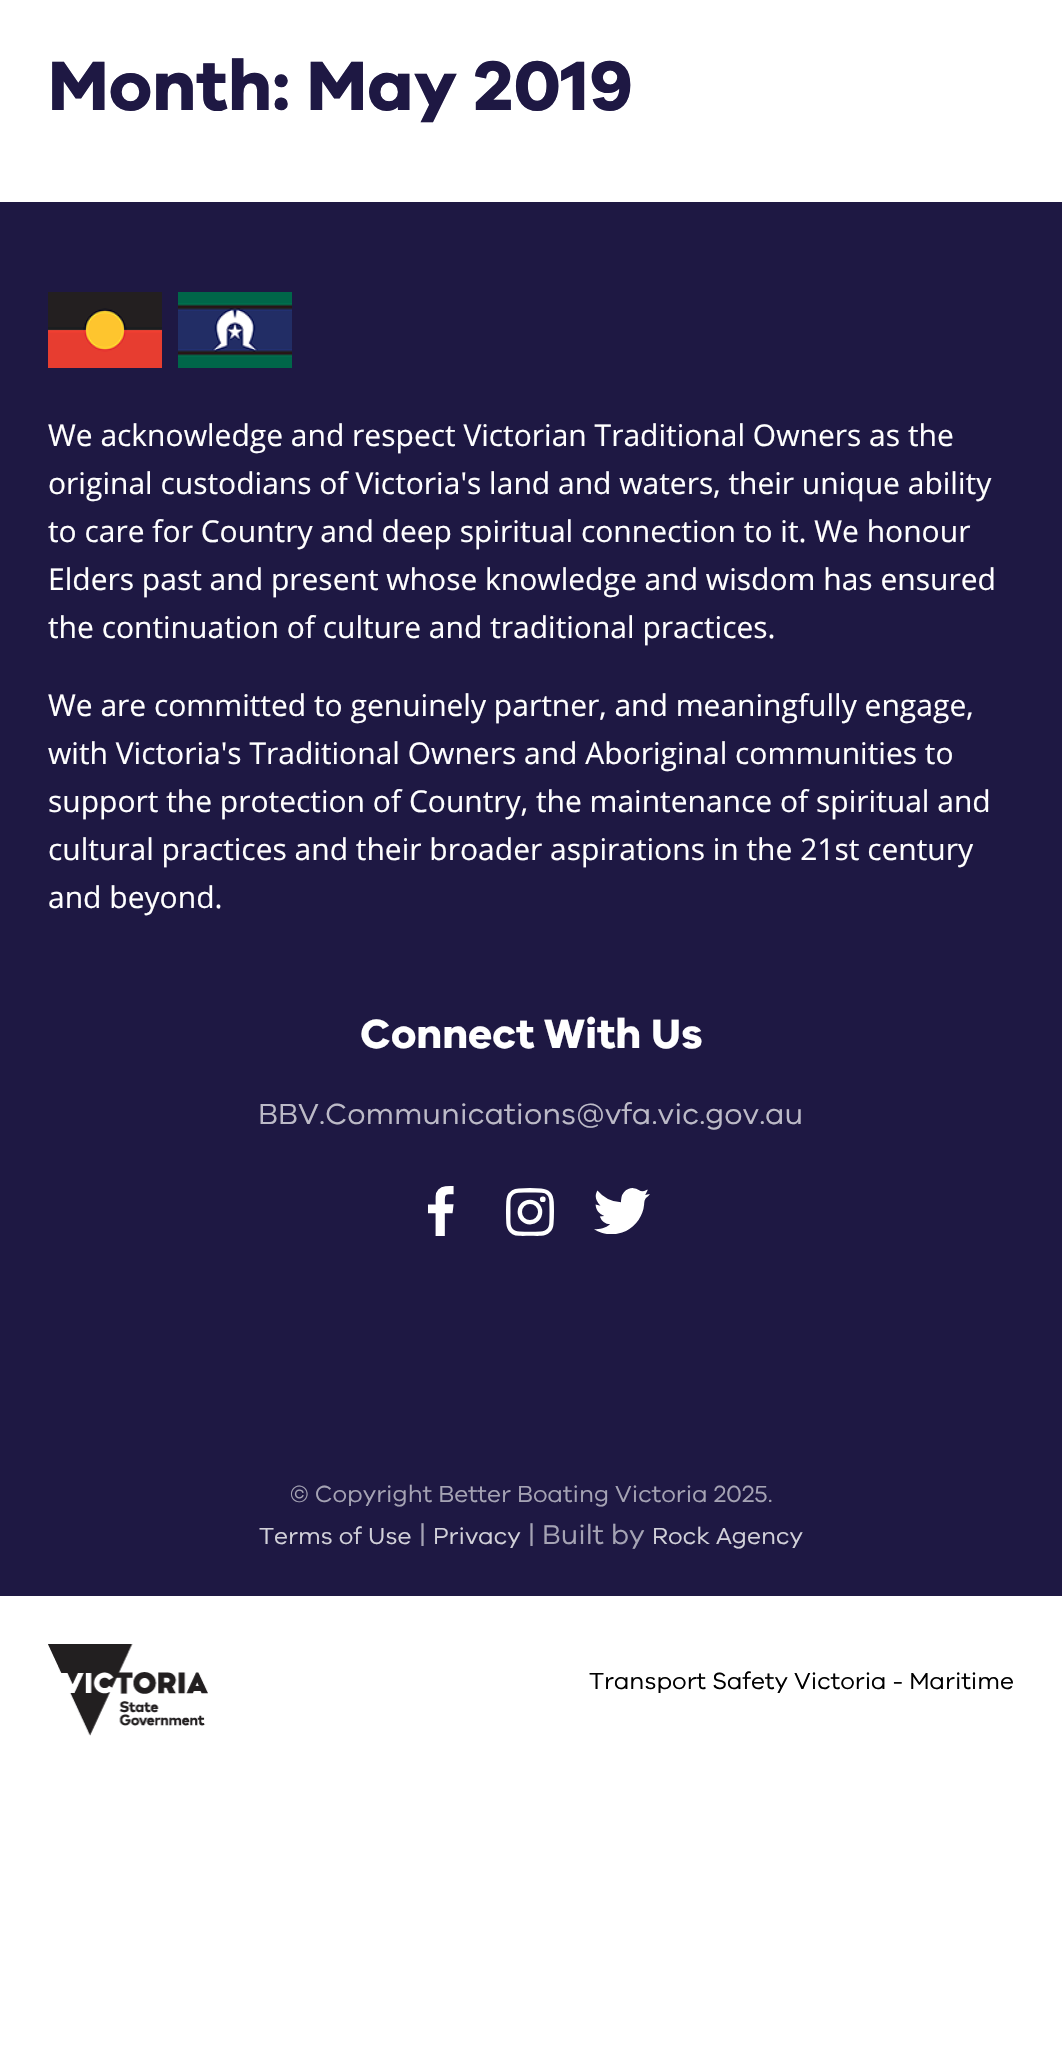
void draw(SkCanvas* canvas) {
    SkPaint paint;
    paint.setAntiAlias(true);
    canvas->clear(0xFFFFFFFF);
    SkFont font1(fontMgr->matchFamilyStyle("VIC", SkFontStyle::Bold()), 72);
    font1.setSubpixel(true);
    paint.setColor(0xFF1E1843);
    canvas->drawString("Month: May 2019", 48, 110, font1, paint);
    canvas->drawRect(SkRect::MakeXYWH(0, 202, 1062, 1394), paint);
    canvas->drawImageRect(SkImages::DeferredFromEncodedData(SkData::MakeFromFileName("img1.png")), SkRect::MakeXYWH(48, 292, 244, 76), SkSamplingOptions());
    SkFont font2(fontMgr->matchFamilyStyle("Open Sans", SkFontStyle::Normal()), 30);
    font2.setSubpixel(true);
    paint.setColor(0xFFFFFFFF);
    canvas->drawString("We acknowledge and respect Victorian Traditional Owners as the", 48, 446, font2, paint);
    canvas->drawString("original custodians of Victoria's land and waters, their unique ability", 48, 494, font2, paint);
    canvas->drawString("to care for Country and deep spiritual connection to it. We honour", 48, 542, font2, paint);
    canvas->drawString("Elders past and present whose knowledge and wisdom has ensured", 48, 590, font2, paint);
    canvas->drawString("the continuation of culture and traditional practices.", 48, 638, font2, paint);
    canvas->drawString("We are committed to genuinely partner, and meaningfully engage,", 48, 716, font2, paint);
    canvas->drawString("with Victoria's Traditional Owners and Aboriginal communities to", 48, 764, font2, paint);
    canvas->drawString("support the protection of Country, the maintenance of spiritual and", 48, 812, font2, paint);
    canvas->drawString("cultural practices and their broader aspirations in the 21st century", 48, 860, font2, paint);
    canvas->drawString("and beyond.", 48, 908, font2, paint);
    SkFont font3(fontMgr->matchFamilyStyle("VIC", SkFontStyle::Bold()), 42);
    font3.setSubpixel(true);
    canvas->drawString("Connect With Us", 360, 1048, font3, paint);
    SkFont font4(fontMgr->matchFamilyStyle("VIC", SkFontStyle::Normal()), 30);
    font4.setSubpixel(true);
    paint.setColor(0xFFBCBAC7);
    canvas->drawString("BBV.Communications@vfa.vic.gov.au", 258, 1124, font4, paint);
    canvas->drawImageRect(SkImages::DeferredFromEncodedData(SkData::MakeFromFileName("img2.png")), SkRect::MakeXYWH(428, 1186, 26, 50), SkSamplingOptions());
    canvas->drawImageRect(SkImages::DeferredFromEncodedData(SkData::MakeFromFileName("img3.png")), SkRect::MakeXYWH(506, 1188, 48, 48), SkSamplingOptions());
    canvas->drawImageRect(SkImages::DeferredFromEncodedData(SkData::MakeFromFileName("img4.png")), SkRect::MakeXYWH(594, 1188, 56, 46), SkSamplingOptions());
    SkFont font5(fontMgr->matchFamilyStyle("VIC", SkFontStyle::Normal()), 24);
    font5.setSubpixel(true);
    paint.setColor(0xFFA5A3B4);
    canvas->drawString("© Copyright Better Boating Victoria 2025.", 290, 1502, font5, paint);
    paint.setColor(0xFFD2D1D9);
    canvas->drawString("Terms of Use", 259, 1544, font5, paint);
    SkFont font6(fontMgr->matchFamilyStyle("VIC", SkFontStyle::Normal()), 28);
    font6.setSubpixel(true);
    paint.setColor(0xFFA5A3B4);
    canvas->drawString("|", 419, 1544, font6, paint);
    paint.setColor(0xFFD2D1D9);
    canvas->drawString("Privacy", 433, 1544, font5, paint);
    paint.setColor(0xFFA5A3B4);
    canvas->drawString("| Built by", 528, 1544, font6, paint);
    paint.setColor(0xFFD2D1D9);
    canvas->drawString("Rock Agency", 652, 1544, font5, paint);
    canvas->drawImageRect(SkImages::DeferredFromEncodedData(SkData::MakeFromFileName("img5.png")), SkRect::MakeXYWH(48, 1644, 160, 92), SkSamplingOptions());
    paint.setColor(0xFF000000);
    canvas->drawString("Transport Safety Victoria - Maritime", 589, 1689, font5, paint);
}
